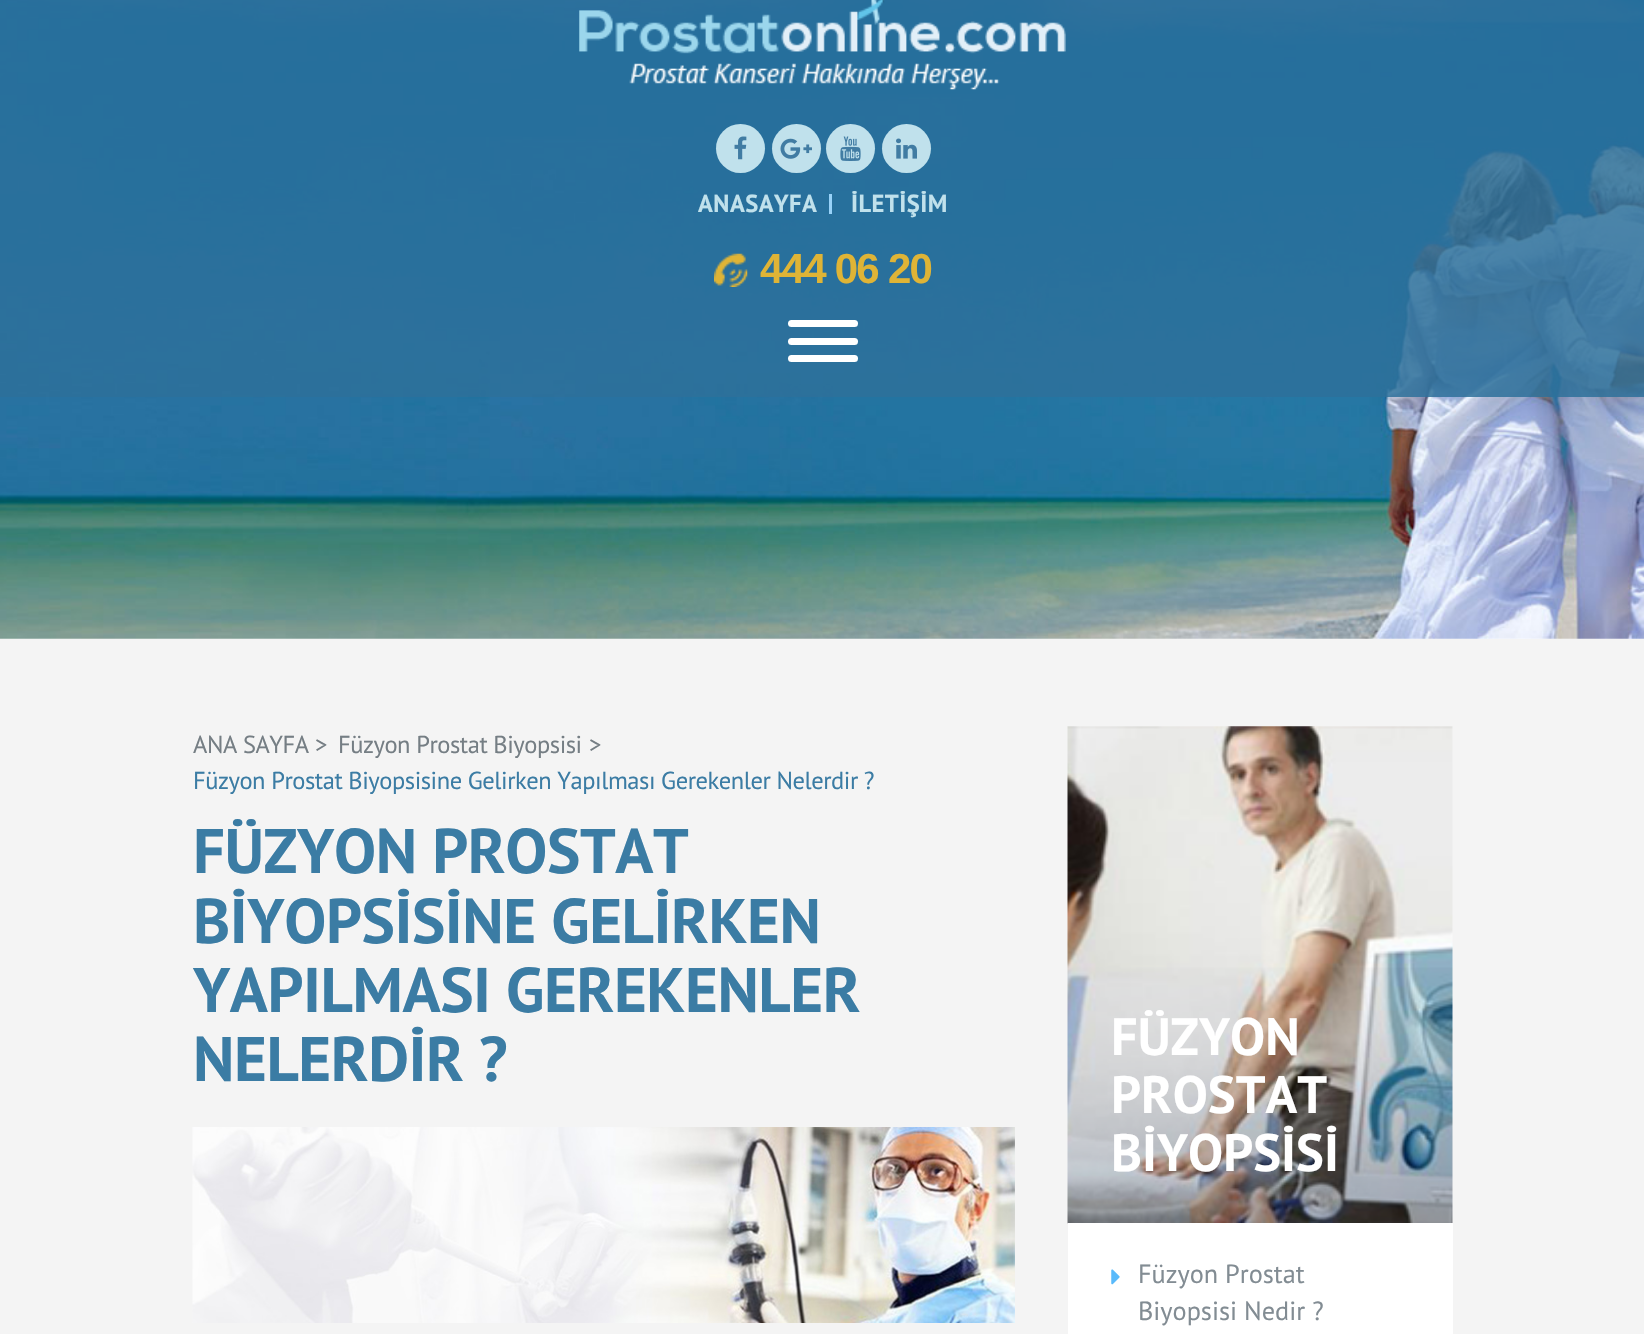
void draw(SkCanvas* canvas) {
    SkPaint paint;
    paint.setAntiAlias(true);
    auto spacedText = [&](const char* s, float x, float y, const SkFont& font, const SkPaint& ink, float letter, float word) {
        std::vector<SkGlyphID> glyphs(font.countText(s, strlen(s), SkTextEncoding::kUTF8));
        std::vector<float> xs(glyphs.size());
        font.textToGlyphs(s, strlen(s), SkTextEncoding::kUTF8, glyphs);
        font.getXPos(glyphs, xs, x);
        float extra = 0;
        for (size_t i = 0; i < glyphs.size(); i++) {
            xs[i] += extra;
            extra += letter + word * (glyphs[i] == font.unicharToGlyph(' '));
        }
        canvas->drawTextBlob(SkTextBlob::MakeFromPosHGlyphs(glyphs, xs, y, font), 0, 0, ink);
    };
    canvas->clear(0xFFFFFFFF);
    canvas->drawImageRect(SkImages::DeferredFromEncodedData(SkData::MakeFromFileName("img1.png")), SkRect::MakeXYWH(0, 0, 1644, 639), SkSamplingOptions());
    paint.setColor(0xD92D709A);
    canvas->drawRect(SkRect::MakeXYWH(0, 0, 1644, 397), paint);
    canvas->drawImageRect(SkImages::DeferredFromEncodedData(SkData::MakeFromFileName("img2.png")), SkRect::MakeXYWH(579, 0, 487, 90), SkSamplingOptions());
    paint.setColor(0xFFC0E1EC);
    canvas->drawCircle(740.5f, 148.5f, 24.5f, paint);
    canvas->drawImageRect(SkImages::DeferredFromEncodedData(SkData::MakeFromFileName("img3.png")), SkRect::MakeXYWH(734, 136, 13, 24), SkSamplingOptions());
    canvas->drawCircle(796.5f, 148.5f, 24.5f, paint);
    canvas->drawImageRect(SkImages::DeferredFromEncodedData(SkData::MakeFromFileName("img4.png")), SkRect::MakeXYWH(780, 138, 32, 21), SkSamplingOptions());
    canvas->drawCircle(850.5f, 148.5f, 24.5f, paint);
    canvas->drawImageRect(SkImages::DeferredFromEncodedData(SkData::MakeFromFileName("img5.png")), SkRect::MakeXYWH(840, 136, 21, 25), SkSamplingOptions());
    canvas->drawCircle(906.5f, 148.5f, 24.5f, paint);
    canvas->drawImageRect(SkImages::DeferredFromEncodedData(SkData::MakeFromFileName("img6.png")), SkRect::MakeXYWH(896, 138, 21, 21), SkSamplingOptions());
    paint.setColor(0xFF98D2F8);
    canvas->drawRect(SkRect::MakeXYWH(829, 194, 3, 20), paint);
    SkFont font1(fontMgr->matchFamilyStyle("PT Sans", SkFontStyle::Bold()), 24.5f);
    font1.setSubpixel(true);
    paint.setColor(0xFFC0E1EC);
    spacedText("ANASAYFA", 698, 212, font1, paint, 0.5f, 0);
    spacedText("İLETİŞİM", 851, 212, font1, paint, 0.5f, 0);
    canvas->drawImageRect(SkImages::DeferredFromEncodedData(SkData::MakeFromFileName("img7.png")), SkRect::MakeXYWH(714, 253, 34, 34), SkSamplingOptions());
    SkFont font2(fontMgr->matchFamilyStyle("Liberation Sans", SkFontStyle::Bold()), 42);
    font2.setSubpixel(true);
    paint.setColor(0xFFDFB436);
    spacedText("444 06 20", 760, 283, font2, paint, -1.75f, 0);
    paint.setColor(0xFFFFFFFF);
    canvas->drawRoundRect(SkRect::MakeXYWH(788, 338, 70, 7), 3.5f, 3.5f, paint);
    canvas->drawRoundRect(SkRect::MakeXYWH(788, 320, 70, 7), 3.5f, 3.5f, paint);
    canvas->drawRoundRect(SkRect::MakeXYWH(788, 355, 70, 7), 3.5f, 3.5f, paint);
    paint.setColor(0xFFF4F4F4);
    canvas->drawRect(SkRect::MakeXYWH(0, 639, 1644, 695), paint);
    SkFont font3(fontMgr->matchFamilyStyle("PT Sans", SkFontStyle::Normal()), 24.5f);
    font3.setSubpixel(true);
    paint.setColor(0xFF757E84);
    spacedText("ANA SAYFA", 193, 753, font3, paint, -0.45f, 0);
    canvas->drawString(">", 315, 753, font3, paint);
    spacedText("Füzyon Prostat Biyopsisi", 338, 753, font3, paint, -0.45f, 0);
    canvas->drawString(">", 589, 753, font3, paint);
    paint.setColor(0xFF3B7CA4);
    spacedText("Füzyon Prostat Biyopsisine Gelirken Yapılması Gerekenler Nelerdir ?", 193, 789, font3, paint, -0.45f, 0);
    SkFont font4(fontMgr->matchFamilyStyle("PT Sans", SkFontStyle::Bold()), 63);
    font4.setSubpixel(true);
    spacedText("FÜZYON PROSTAT", 193, 873, font4, paint, -0.45f, 0);
    spacedText("BİYOPSİSİNE GELİRKEN", 193, 943, font4, paint, -0.45f, 0);
    spacedText("YAPILMASI GEREKENLER", 193, 1012, font4, paint, -0.45f, 0);
    spacedText("NELERDİR ?", 193, 1081, font4, paint, -0.45f, 0);
    canvas->drawImageRect(SkImages::DeferredFromEncodedData(SkData::MakeFromFileName("img8.png")), SkRect::MakeXYWH(192, 1127, 823, 196), SkSamplingOptions());
    canvas->drawImageRect(SkImages::DeferredFromEncodedData(SkData::MakeFromFileName("img9.png")), SkRect::MakeXYWH(1067, 726, 386, 498), SkSamplingOptions());
    SkFont font5(fontMgr->matchFamilyStyle("PT Sans", SkFontStyle::Bold()), 52.5f);
    font5.setSubpixel(true);
    paint.setColor(0xFFFFFFFF);
    canvas->drawString("FÜZYON", 1111, 1055, font5, paint);
    canvas->drawString("PROSTAT", 1111, 1113, font5, paint);
    canvas->drawString("BİYOPSİSİ", 1111, 1171, font5, paint);
    canvas->drawRect(SkRect::MakeXYWH(1068, 1223, 385, 111), paint);
    canvas->drawImageRect(SkImages::DeferredFromEncodedData(SkData::MakeFromFileName("img10.png")), SkRect::MakeXYWH(1111, 1269, 9, 16), SkSamplingOptions());
    SkFont font6(fontMgr->matchFamilyStyle("PT Sans", SkFontStyle::Normal()), 26.25f);
    font6.setSubpixel(true);
    paint.setColor(0xFF828C93);
    canvas->drawString("Füzyon Prostat", 1138, 1283, font6, paint);
    canvas->drawString("Biyopsisi Nedir ?", 1138, 1320, font6, paint);
}
